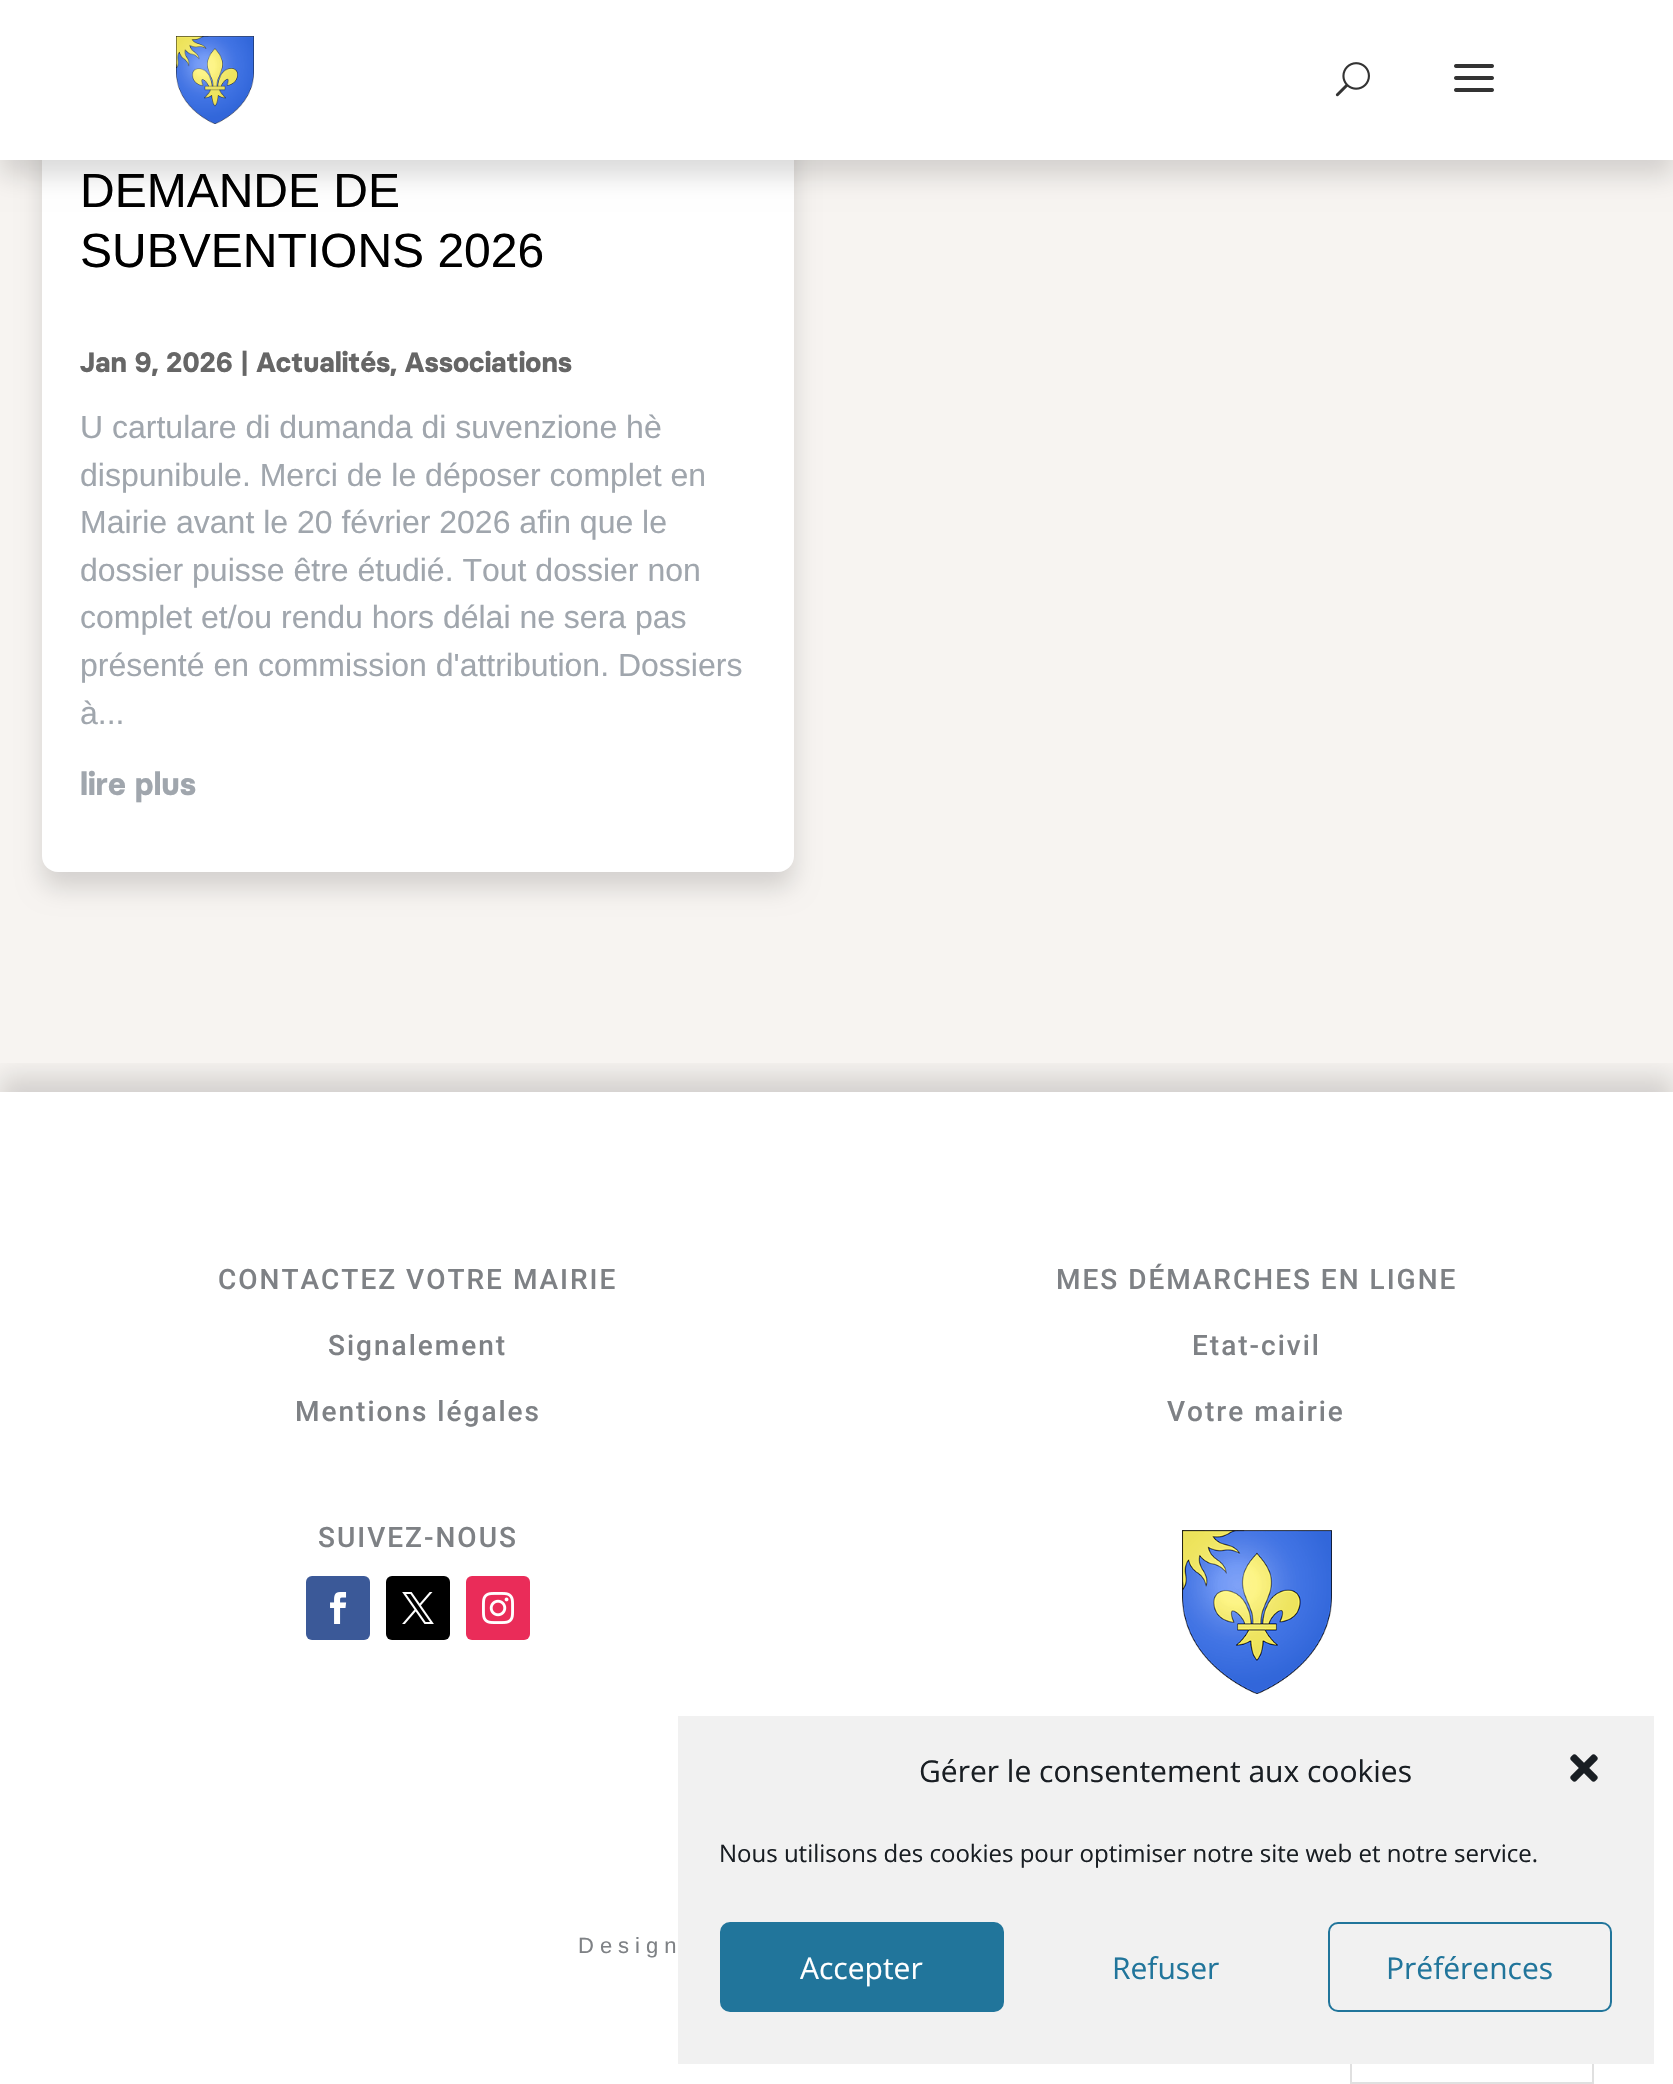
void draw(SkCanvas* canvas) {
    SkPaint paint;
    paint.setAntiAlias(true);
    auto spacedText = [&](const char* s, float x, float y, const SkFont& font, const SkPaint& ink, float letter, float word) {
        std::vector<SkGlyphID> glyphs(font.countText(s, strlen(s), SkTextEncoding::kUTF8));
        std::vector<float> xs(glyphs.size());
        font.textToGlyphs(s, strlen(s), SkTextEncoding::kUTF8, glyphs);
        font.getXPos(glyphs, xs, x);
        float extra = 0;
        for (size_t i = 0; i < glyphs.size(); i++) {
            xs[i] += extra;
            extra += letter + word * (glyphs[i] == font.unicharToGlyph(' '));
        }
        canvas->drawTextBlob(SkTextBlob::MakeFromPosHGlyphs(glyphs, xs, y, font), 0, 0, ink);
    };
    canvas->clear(0xFFFFFFFF);
    paint.setColor(0xFFF7F4F1);
    canvas->drawRect(SkRect::MakeXYWH(0, 160, 1673, 932), paint);
    paint.setColor(0x24000000);
    paint.setMaskFilter(SkMaskFilter::MakeBlur(kNormal_SkBlurStyle, 12));
    canvas->drawRoundRect(SkRect::MakeXYWH(42, -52, 752, 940), 16, 16, paint);
    paint.setMaskFilter(nullptr);
    paint.setColor(0xFFFFFFFF);
    canvas->drawRoundRect(SkRect::MakeXYWH(42, -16, 752, 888), 16, 16, paint);
    paint.setColor(0x24000000);
    paint.setMaskFilter(SkMaskFilter::MakeBlur(kNormal_SkBlurStyle, 12));
    canvas->drawRect(SkRect::MakeXYWH(0, 16, 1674, 160), paint);
    paint.setMaskFilter(nullptr);
    paint.setColor(0xFFFFFFFF);
    canvas->drawRect(SkRect::MakeXYWH(0, 0, 1673, 160), paint);
    canvas->drawImageRect(SkImages::DeferredFromEncodedData(SkData::MakeFromFileName("img1.png")), SkRect::MakeXYWH(176, 36, 78, 88), SkSamplingOptions());
    canvas->drawImageRect(SkImages::DeferredFromEncodedData(SkData::MakeFromFileName("img2.png")), SkRect::MakeXYWH(1335, 62, 35, 35), SkSamplingOptions());
    canvas->drawImageRect(SkImages::DeferredFromEncodedData(SkData::MakeFromFileName("img3.png")), SkRect::MakeXYWH(1454, 64, 40, 28), SkSamplingOptions());
    SkFont font1(fontMgr->matchFamilyStyle("Liberation Sans", SkFontStyle::Normal()), 48);
    font1.setSubpixel(true);
    paint.setColor(0xFF000000);
    canvas->drawString("DEMANDE DE", 80, 207, font1, paint);
    canvas->drawString("SUBVENTIONS 2026", 80, 267, font1, paint);
    SkFont font2(fontMgr->matchFamilyStyle("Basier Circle", SkFontStyle::Bold()), 28);
    font2.setSubpixel(true);
    paint.setColor(0xFF666666);
    canvas->drawString("Jan 9, 2026 | Actualités, Associations", 80, 372, font2, paint);
    SkFont font3(fontMgr->matchFamilyStyle("Liberation Sans", SkFontStyle::Normal()), 32);
    font3.setSubpixel(true);
    paint.setColor(0xFFA0A6AD);
    canvas->drawString("U cartulare di dumanda di suvenzione hè", 80, 438, font3, paint);
    canvas->drawString("dispunibule. Merci de le déposer complet en", 80, 486, font3, paint);
    canvas->drawString("Mairie avant le 20 février 2026 afin que le", 80, 533, font3, paint);
    canvas->drawString("dossier puisse être étudié. Tout dossier non", 80, 581, font3, paint);
    canvas->drawString("complet et/ou rendu hors délai ne sera pas", 80, 628, font3, paint);
    canvas->drawString("présenté en commission d'attribution. Dossiers", 80, 676, font3, paint);
    canvas->drawString("à...", 80, 724, font3, paint);
    SkFont font4(fontMgr->matchFamilyStyle("Basier Circle", SkFontStyle::Bold()), 32);
    font4.setSubpixel(true);
    canvas->drawString("lire plus", 80, 795, font4, paint);
    canvas->save();
    canvas->clipRect(SkRect::MakeXYWH(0, 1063, 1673, 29));
    paint.setColor(0x24000000);
    paint.setMaskFilter(SkMaskFilter::MakeBlur(kNormal_SkBlurStyle, 12));
    canvas->drawRect(SkRect::MakeXYWH(0, 1076, 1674, 774), paint);
    paint.setMaskFilter(nullptr);
    canvas->restore();
    SkFont font5(fontMgr->matchFamilyStyle("Roboto", SkFontStyle(500, SkFontStyle::kNormal_Width, SkFontStyle::kUpright_Slant)), 28);
    font5.setSubpixel(true);
    paint.setColor(0xFF7E8185);
    spacedText("CONTACTEZ VOTRE MAIRIE", 218, 1289, font5, paint, 2, 0);
    spacedText("Signalement", 328, 1355, font5, paint, 2, 0);
    spacedText("Mentions légales", 295, 1421, font5, paint, 2, 0);
    spacedText("MES DÉMARCHES EN LIGNE", 1056, 1289, font5, paint, 2, 0);
    spacedText("Etat-civil", 1192, 1355, font5, paint, 2, 0);
    spacedText("Votre mairie", 1167, 1421, font5, paint, 2, 0);
    spacedText("SUIVEZ-NOUS", 318, 1547, font5, paint, 2, 0);
    paint.setColor(0xFF3B5998);
    canvas->drawRoundRect(SkRect::MakeXYWH(306, 1576, 64, 64), 6, 6, paint);
    canvas->drawImageRect(SkImages::DeferredFromEncodedData(SkData::MakeFromFileName("img4.png")), SkRect::MakeXYWH(330, 1592, 17, 32), SkSamplingOptions());
    paint.setColor(0xFF000000);
    canvas->drawRoundRect(SkRect::MakeXYWH(386, 1576, 64, 64), 6, 6, paint);
    canvas->drawImageRect(SkImages::DeferredFromEncodedData(SkData::MakeFromFileName("img5.png")), SkRect::MakeXYWH(402, 1592, 32, 32), SkSamplingOptions());
    paint.setColor(0xFFEA2C59);
    canvas->drawRoundRect(SkRect::MakeXYWH(466, 1576, 64, 64), 6, 6, paint);
    canvas->drawImageRect(SkImages::DeferredFromEncodedData(SkData::MakeFromFileName("img6.png")), SkRect::MakeXYWH(482, 1592, 32, 32), SkSamplingOptions());
    canvas->drawImageRect(SkImages::DeferredFromEncodedData(SkData::MakeFromFileName("img7.png")), SkRect::MakeXYWH(1182, 1530, 150, 164), SkSamplingOptions());
    SkFont font6(fontMgr->matchFamilyStyle("Liberation Sans", SkFontStyle::Normal()), 22);
    font6.setSubpixel(true);
    paint.setColor(0xFF7E8185);
    spacedText("Design", 578, 1953, font6, paint, 6, 0);
    paint.setStyle(SkPaint::kStroke_Style);
    paint.setStrokeWidth(2);
    paint.setColor(0xFFE0E0E0);
    canvas->drawRect(SkRect::MakeXYWH(1351, 2007, 242, 76), paint);
    paint.setStyle(SkPaint::kFill_Style);
    paint.setColor(0xFFF1F1F1);
    canvas->drawRect(SkRect::MakeXYWH(678, 1716, 976, 348), paint);
    SkFont font7(fontMgr->matchFamilyStyle("Open Sans", SkFontStyle::Normal()), 30);
    font7.setSubpixel(true);
    paint.setColor(0xFF191E23);
    canvas->drawString("Gérer le consentement aux cookies", 919, 1782, font7, paint);
    canvas->drawImageRect(SkImages::DeferredFromEncodedData(SkData::MakeFromFileName("img8.png")), SkRect::MakeXYWH(1570, 1754, 28, 28), SkSamplingOptions());
    SkFont font8(fontMgr->matchFamilyStyle("Open Sans", SkFontStyle::Normal()), 24);
    font8.setSubpixel(true);
    canvas->drawString("Nous utilisons des cookies pour optimiser notre site web et notre service.", 719, 1862, font8, paint);
    paint.setColor(0xFF21759B);
    canvas->drawRoundRect(SkRect::MakeXYWH(721, 1923, 282, 88), 9, 9, paint);
    paint.setStyle(SkPaint::kStroke_Style);
    canvas->drawRoundRect(SkRect::MakeXYWH(721, 1923, 282, 88), 9, 9, paint);
    paint.setStyle(SkPaint::kFill_Style);
    paint.setColor(0xFFFFFFFF);
    canvas->drawString("Accepter", 800, 1979, font7, paint);
    paint.setColor(0xFF21759B);
    canvas->drawString("Refuser", 1112, 1979, font7, paint);
    paint.setStyle(SkPaint::kStroke_Style);
    canvas->drawRoundRect(SkRect::MakeXYWH(1329, 1923, 282, 88), 9, 9, paint);
    paint.setStyle(SkPaint::kFill_Style);
    canvas->drawString("Préférences", 1386, 1979, font7, paint);
}
